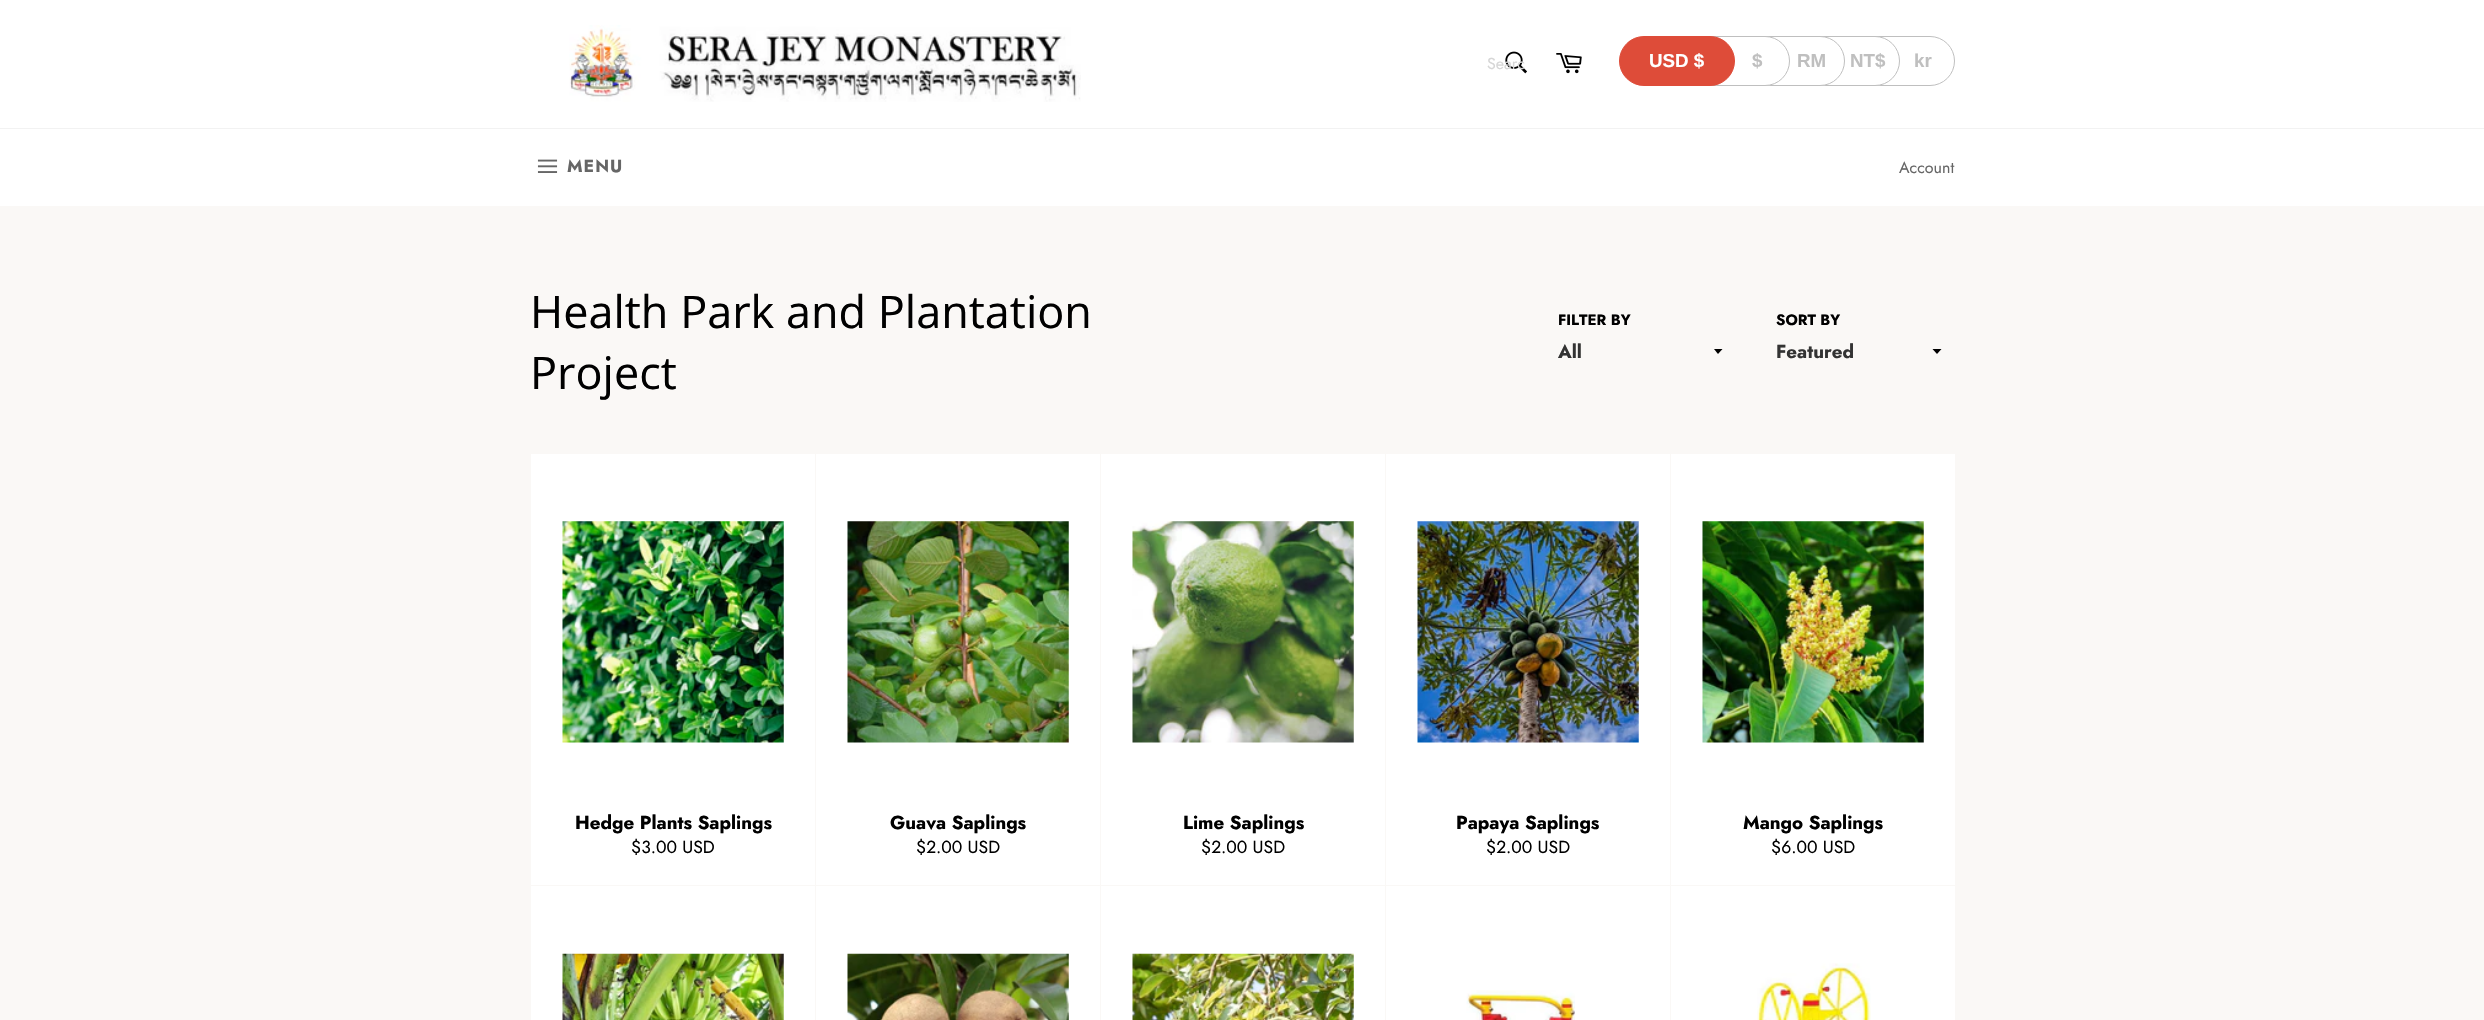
void draw(SkCanvas* canvas) {
    SkPaint paint;
    paint.setAntiAlias(true);
    auto spacedText = [&](const char* s, float x, float y, const SkFont& font, const SkPaint& ink, float letter, float word) {
        std::vector<SkGlyphID> glyphs(font.countText(s, strlen(s), SkTextEncoding::kUTF8));
        std::vector<float> xs(glyphs.size());
        font.textToGlyphs(s, strlen(s), SkTextEncoding::kUTF8, glyphs);
        font.getXPos(glyphs, xs, x);
        float extra = 0;
        for (size_t i = 0; i < glyphs.size(); i++) {
            xs[i] += extra;
            extra += letter + word * (glyphs[i] == font.unicharToGlyph(' '));
        }
        canvas->drawTextBlob(SkTextBlob::MakeFromPosHGlyphs(glyphs, xs, y, font), 0, 0, ink);
    };
    canvas->clear(0xFFFAF8F6);
    paint.setColor(0xFFFFFFFF);
    canvas->drawRect(SkRect::MakeXYWH(0, 0, 2484, 128), paint);
    canvas->drawImageRect(SkImages::DeferredFromEncodedData(SkData::MakeFromFileName("img1.png")), SkRect::MakeXYWH(569, 25, 512, 77), SkSamplingOptions());
    canvas->drawImageRect(SkImages::DeferredFromEncodedData(SkData::MakeFromFileName("img2.png")), SkRect::MakeXYWH(1505, 51, 22, 23), SkSamplingOptions());
    SkFont font1(fontMgr->matchFamilyStyle("Jost", SkFontStyle::Normal()), 16);
    font1.setSubpixel(true);
    paint.setColor(0xFFD6D6D6);
    canvas->drawString("Searc", 1487, 69, font1, paint);
    canvas->drawImageRect(SkImages::DeferredFromEncodedData(SkData::MakeFromFileName("img3.png")), SkRect::MakeXYWH(1556, 53, 26, 21), SkSamplingOptions());
    paint.setStyle(SkPaint::kStroke_Style);
    paint.setStrokeWidth(1);
    paint.setColor(0xFFBFBFBF);
    canvas->drawRoundRect(SkRect::MakeXYWH(1843.5f, 36.5f, 111, 49), 24.5f, 24.5f, paint);
    paint.setStyle(SkPaint::kFill_Style);
    paint.setColor(0xFFFFFFFF);
    canvas->drawRoundRect(SkRect::MakeXYWH(1788.5f, 36.5f, 111, 49), 24.5f, 24.5f, paint);
    paint.setStyle(SkPaint::kStroke_Style);
    paint.setColor(0xFFBFBFBF);
    canvas->drawRoundRect(SkRect::MakeXYWH(1788.5f, 36.5f, 111, 49), 24.5f, 24.5f, paint);
    paint.setStyle(SkPaint::kFill_Style);
    paint.setColor(0xFFFFFFFF);
    canvas->drawRoundRect(SkRect::MakeXYWH(1733.5f, 36.5f, 111, 49), 24.5f, 24.5f, paint);
    paint.setStyle(SkPaint::kStroke_Style);
    paint.setColor(0xFFBFBFBF);
    canvas->drawRoundRect(SkRect::MakeXYWH(1733.5f, 36.5f, 111, 49), 24.5f, 24.5f, paint);
    paint.setStyle(SkPaint::kFill_Style);
    paint.setColor(0xFFFFFFFF);
    canvas->drawRoundRect(SkRect::MakeXYWH(1678.5f, 36.5f, 111, 49), 24.5f, 24.5f, paint);
    paint.setStyle(SkPaint::kStroke_Style);
    paint.setColor(0xFFBFBFBF);
    canvas->drawRoundRect(SkRect::MakeXYWH(1678.5f, 36.5f, 111, 49), 24.5f, 24.5f, paint);
    paint.setStyle(SkPaint::kFill_Style);
    paint.setColor(0xFFDE4C39);
    canvas->drawRoundRect(SkRect::MakeXYWH(1619.5f, 36.5f, 115, 49), 24.5f, 24.5f, paint);
    paint.setStyle(SkPaint::kStroke_Style);
    canvas->drawRoundRect(SkRect::MakeXYWH(1619.5f, 36.5f, 115, 49), 24.5f, 24.5f, paint);
    SkFont font2(fontMgr->matchFamilyStyle("Liberation Sans", SkFontStyle::Bold()), 18.75f);
    font2.setSubpixel(true);
    paint.setStyle(SkPaint::kFill_Style);
    paint.setColor(0xFFFFFFFF);
    canvas->drawString("USD $", 1649, 67, font2, paint);
    paint.setColor(0xFFBFBFBF);
    canvas->drawString("$", 1752, 67, font2, paint);
    canvas->drawString("RM", 1797, 67, font2, paint);
    canvas->drawString("NT$", 1850, 67, font2, paint);
    canvas->drawString("kr", 1914, 67, font2, paint);
    paint.setColor(0xFFFFFFFF);
    canvas->drawRect(SkRect::MakeXYWH(0, 129, 2484, 77), paint);
    paint.setColor(0xFFF2F2F2);
    canvas->drawRect(SkRect::MakeXYWH(0, 128, 2484, 1), paint);
    canvas->drawImageRect(SkImages::DeferredFromEncodedData(SkData::MakeFromFileName("img4.png")), SkRect::MakeXYWH(537, 159, 21, 14), SkSamplingOptions());
    SkFont font3(fontMgr->matchFamilyStyle("Jost", SkFontStyle::Bold()), 17.5f);
    font3.setSubpixel(true);
    paint.setColor(0xFF666666);
    spacedText("MENU", 567, 172, font3, paint, 1, 0);
    canvas->drawString("Account", 1899, 173, font1, paint);
    SkFont font4(fontMgr->matchFamilyStyle("Open Sans", SkFontStyle::Normal()), 45);
    font4.setSubpixel(true);
    paint.setColor(0xFF000000);
    canvas->drawString("Health Park and Plantation", 530, 328, font4, paint);
    canvas->drawString("Project", 530, 389, font4, paint);
    SkFont font5(fontMgr->matchFamilyStyle("Jost", SkFontStyle::Bold()), 15);
    font5.setSubpixel(true);
    canvas->drawString("FILTER BY", 1558, 325, font5, paint);
    canvas->drawPath(SkPathBuilder().moveTo(1714, 349).lineTo(1718, 354).lineTo(1722.5f, 349).close().detach(), paint);
    SkFont font6(fontMgr->matchFamilyStyle("Jost", SkFontStyle::Bold()), 18.75f);
    font6.setSubpixel(true);
    paint.setColor(0xFF333333);
    canvas->drawString("All", 1558, 358, font6, paint);
    paint.setColor(0xFF000000);
    canvas->drawString("SORT BY", 1776, 325, font5, paint);
    canvas->drawPath(SkPathBuilder().moveTo(1932.5f, 349).lineTo(1937, 354).lineTo(1941.5f, 349).close().detach(), paint);
    paint.setColor(0xFF333333);
    canvas->drawString("Featured", 1776, 358, font6, paint);
    paint.setColor(0xFFFFFFFF);
    canvas->drawRect(SkRect::MakeXYWH(531, 454, 284, 431), paint);
    canvas->drawImageRect(SkImages::DeferredFromEncodedData(SkData::MakeFromFileName("img5.png")), SkRect::MakeXYWH(562, 521, 222, 222), SkSamplingOptions());
    paint.setColor(0xFF000000);
    canvas->drawString("Hedge Plants Saplings", 575, 829, font6, paint);
    SkFont font7(fontMgr->matchFamilyStyle("Jost", SkFontStyle::Normal()), 17.5f);
    font7.setSubpixel(true);
    canvas->drawString("$3.00 USD", 631, 853, font7, paint);
    paint.setColor(0xFFFFFFFF);
    canvas->drawRect(SkRect::MakeXYWH(816, 454, 284, 431), paint);
    canvas->drawImageRect(SkImages::DeferredFromEncodedData(SkData::MakeFromFileName("img6.png")), SkRect::MakeXYWH(847, 521, 222, 222), SkSamplingOptions());
    paint.setColor(0xFF000000);
    canvas->drawString("Guava Saplings", 890, 829, font6, paint);
    canvas->drawString("$2.00 USD", 916, 853, font7, paint);
    paint.setColor(0xFFFFFFFF);
    canvas->drawRect(SkRect::MakeXYWH(1101, 454, 284, 431), paint);
    canvas->drawImageRect(SkImages::DeferredFromEncodedData(SkData::MakeFromFileName("img7.png")), SkRect::MakeXYWH(1132, 521, 222, 222), SkSamplingOptions());
    paint.setColor(0xFF000000);
    canvas->drawString("Lime Saplings", 1183, 829, font6, paint);
    canvas->drawString("$2.00 USD", 1201, 853, font7, paint);
    paint.setColor(0xFFFFFFFF);
    canvas->drawRect(SkRect::MakeXYWH(1386, 454, 284, 431), paint);
    canvas->drawImageRect(SkImages::DeferredFromEncodedData(SkData::MakeFromFileName("img8.png")), SkRect::MakeXYWH(1417, 521, 222, 222), SkSamplingOptions());
    paint.setColor(0xFF000000);
    canvas->drawString("Papaya Saplings", 1456, 829, font6, paint);
    canvas->drawString("$2.00 USD", 1486, 853, font7, paint);
    paint.setColor(0xFFFFFFFF);
    canvas->drawRect(SkRect::MakeXYWH(1671, 454, 284, 431), paint);
    canvas->drawImageRect(SkImages::DeferredFromEncodedData(SkData::MakeFromFileName("img9.png")), SkRect::MakeXYWH(1702, 521, 222, 222), SkSamplingOptions());
    paint.setColor(0xFF000000);
    canvas->drawString("Mango Saplings", 1743, 829, font6, paint);
    canvas->drawString("$6.00 USD", 1771, 853, font7, paint);
    paint.setColor(0xFFFFFFFF);
    canvas->drawRect(SkRect::MakeXYWH(531, 886, 284, 134), paint);
    canvas->drawImageRect(SkImages::DeferredFromEncodedData(SkData::MakeFromFileName("img10.png")), SkRect::MakeXYWH(562, 953, 222, 67), SkSamplingOptions());
    canvas->drawRect(SkRect::MakeXYWH(816, 886, 284, 134), paint);
    canvas->drawImageRect(SkImages::DeferredFromEncodedData(SkData::MakeFromFileName("img11.png")), SkRect::MakeXYWH(847, 953, 222, 67), SkSamplingOptions());
    canvas->drawRect(SkRect::MakeXYWH(1101, 886, 284, 134), paint);
    canvas->drawImageRect(SkImages::DeferredFromEncodedData(SkData::MakeFromFileName("img12.png")), SkRect::MakeXYWH(1132, 953, 222, 67), SkSamplingOptions());
    canvas->drawRect(SkRect::MakeXYWH(1386, 886, 284, 134), paint);
    canvas->drawImageRect(SkImages::DeferredFromEncodedData(SkData::MakeFromFileName("img13.png")), SkRect::MakeXYWH(1466, 990, 109, 30), SkSamplingOptions());
    canvas->drawRect(SkRect::MakeXYWH(1671, 886, 284, 134), paint);
    canvas->drawImageRect(SkImages::DeferredFromEncodedData(SkData::MakeFromFileName("img14.png")), SkRect::MakeXYWH(1757, 963, 114, 57), SkSamplingOptions());
}
